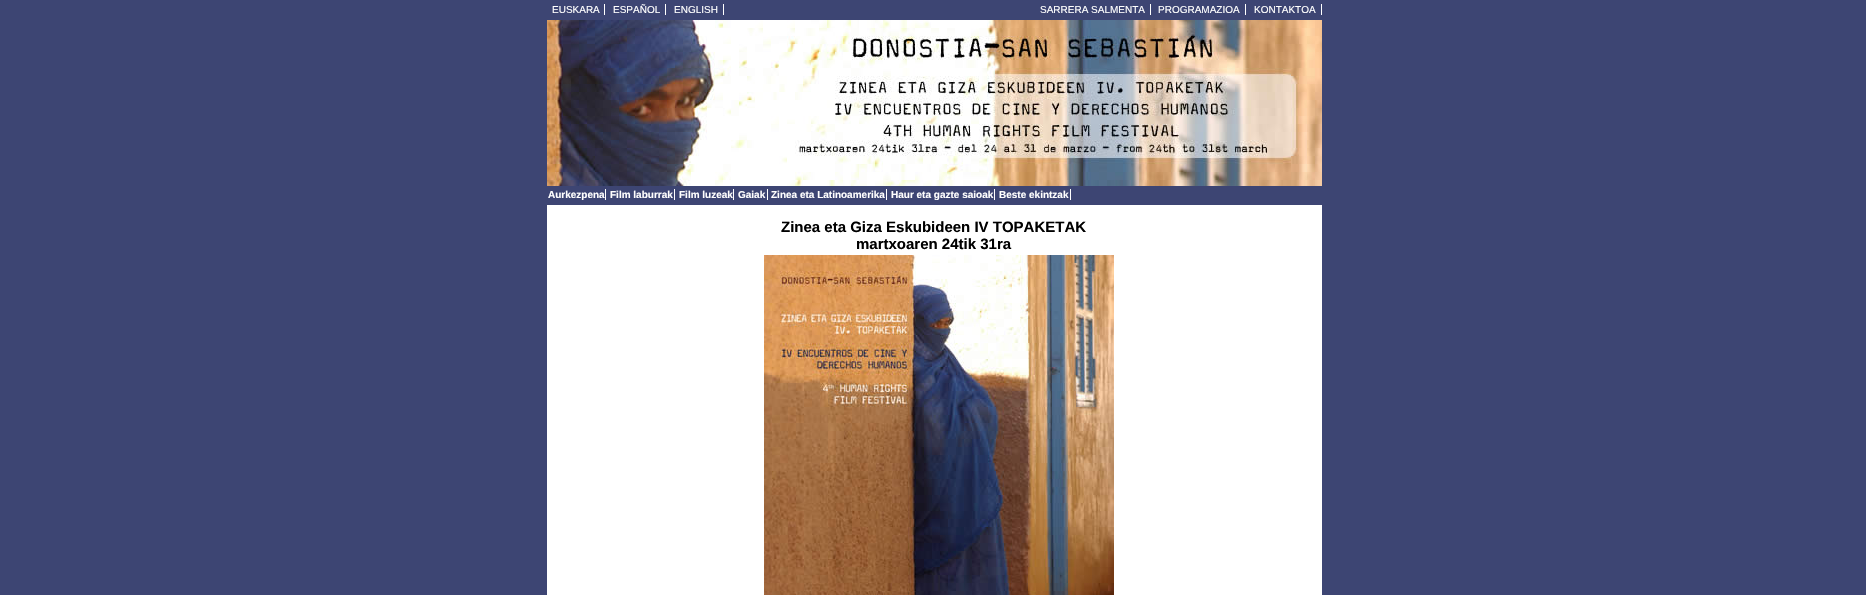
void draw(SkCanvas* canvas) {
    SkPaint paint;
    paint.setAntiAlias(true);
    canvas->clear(0xFF3D4573);
    paint.setColor(0xFFFFFFFF);
    canvas->drawRect(SkRect::MakeXYWH(547, 205, 775, 390), paint);
    SkFont font1(fontMgr->matchFamilyStyle("Liberation Sans", SkFontStyle::Normal()), 10);
    font1.setSubpixel(true);
    canvas->drawString("EUSKARA", 552, 13, font1, paint);
    canvas->drawRect(SkRect::MakeXYWH(604, 4, 1, 11), paint);
    canvas->drawString("ESPAÑOL", 613, 13, font1, paint);
    canvas->drawRect(SkRect::MakeXYWH(665, 4, 1, 11), paint);
    canvas->drawString("ENGLISH", 674, 13, font1, paint);
    canvas->drawRect(SkRect::MakeXYWH(723, 4, 1, 11), paint);
    canvas->drawString("SARRERA SALMENTA", 1040, 13, font1, paint);
    canvas->drawRect(SkRect::MakeXYWH(1150, 4, 1, 11), paint);
    canvas->drawString("PROGRAMAZIOA", 1158, 13, font1, paint);
    canvas->drawRect(SkRect::MakeXYWH(1245, 4, 1, 11), paint);
    canvas->drawString("KONTAKTOA", 1254, 13, font1, paint);
    canvas->drawRect(SkRect::MakeXYWH(1321, 4, 1, 11), paint);
    canvas->drawImageRect(SkImages::DeferredFromEncodedData(SkData::MakeFromFileName("img1.png")), SkRect::MakeXYWH(547, 20, 775, 166), SkSamplingOptions());
    SkFont font2(fontMgr->matchFamilyStyle("Liberation Sans", SkFontStyle::Bold()), 10);
    font2.setSubpixel(true);
    canvas->drawString("Aurkezpena", 548, 198, font2, paint);
    canvas->drawRect(SkRect::MakeXYWH(605, 189, 1, 11), paint);
    canvas->drawString("Film laburrak", 610, 198, font2, paint);
    canvas->drawRect(SkRect::MakeXYWH(674, 189, 1, 11), paint);
    canvas->drawString("Film luzeak", 679, 198, font2, paint);
    canvas->drawRect(SkRect::MakeXYWH(733, 189, 1, 11), paint);
    canvas->drawString("Gaiak", 738, 198, font2, paint);
    canvas->drawRect(SkRect::MakeXYWH(767, 189, 1, 11), paint);
    canvas->drawString("Zinea eta Latinoamerika", 771, 198, font2, paint);
    canvas->drawRect(SkRect::MakeXYWH(886, 189, 1, 11), paint);
    canvas->drawString("Haur eta gazte saioak", 891, 198, font2, paint);
    canvas->drawRect(SkRect::MakeXYWH(994, 189, 1, 11), paint);
    canvas->drawString("Beste ekintzak", 999, 198, font2, paint);
    canvas->drawRect(SkRect::MakeXYWH(1070, 189, 1, 11), paint);
    SkFont font3(fontMgr->matchFamilyStyle("Liberation Sans", SkFontStyle::Bold()), 15);
    font3.setSubpixel(true);
    paint.setColor(0xFF000000);
    canvas->drawString("Zinea eta Giza Eskubideen IV TOPAKETAK", 781, 232, font3, paint);
    canvas->drawString("martxoaren 24tik 31ra", 856, 249, font3, paint);
    canvas->drawImageRect(SkImages::DeferredFromEncodedData(SkData::MakeFromFileName("img2.png")), SkRect::MakeXYWH(764, 255, 350, 340), SkSamplingOptions());
}
